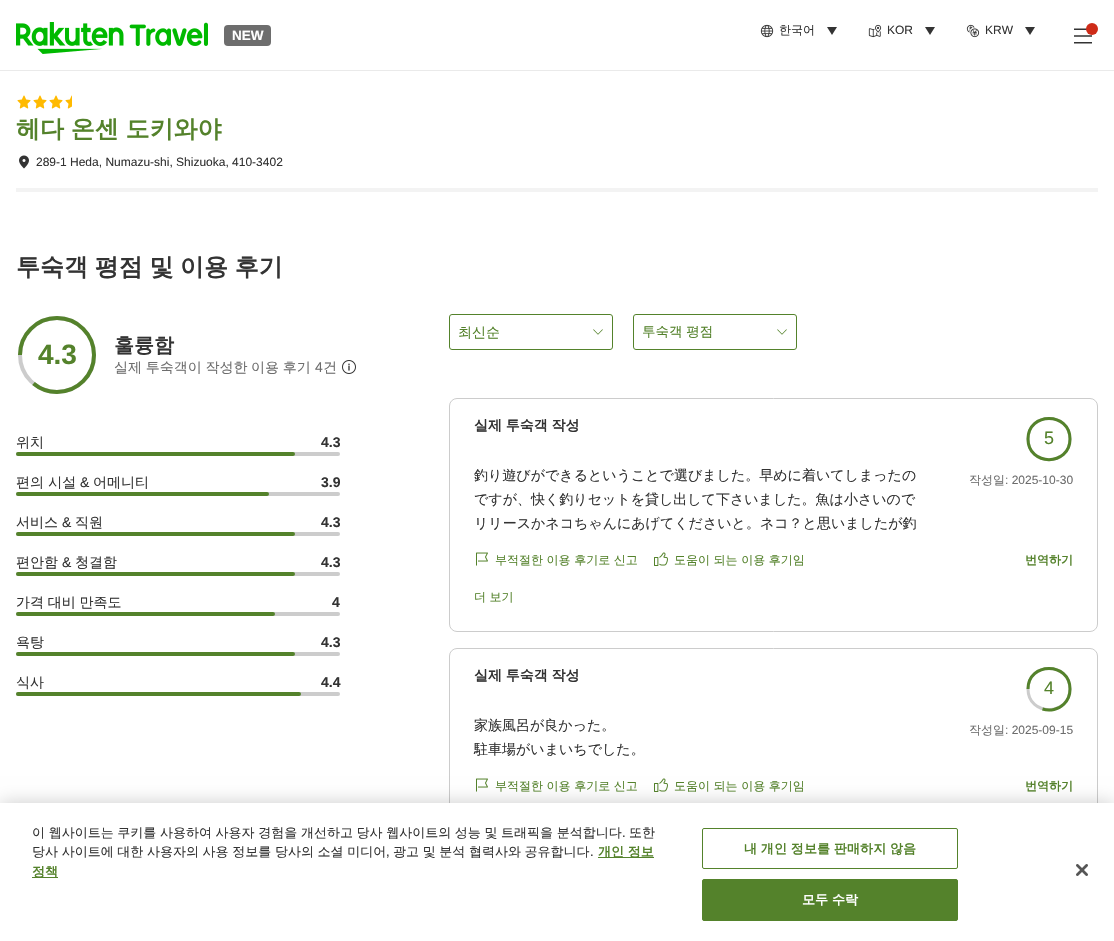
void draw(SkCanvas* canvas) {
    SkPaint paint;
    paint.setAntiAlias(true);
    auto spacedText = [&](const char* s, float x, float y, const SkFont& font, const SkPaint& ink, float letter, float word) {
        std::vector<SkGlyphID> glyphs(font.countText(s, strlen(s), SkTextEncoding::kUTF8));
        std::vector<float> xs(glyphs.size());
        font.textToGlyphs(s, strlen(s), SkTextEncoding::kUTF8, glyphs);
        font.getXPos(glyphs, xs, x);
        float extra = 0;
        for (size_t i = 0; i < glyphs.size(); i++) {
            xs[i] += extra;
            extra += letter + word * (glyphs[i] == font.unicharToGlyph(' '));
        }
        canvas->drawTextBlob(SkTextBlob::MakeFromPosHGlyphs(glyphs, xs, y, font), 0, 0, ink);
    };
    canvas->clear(0xFFFFFFFF);
    paint.setColor(0xFFEAEAEA);
    canvas->drawRect(SkRect::MakeXYWH(0, 70, 1114, 1), paint);
    canvas->drawImageRect(SkImages::DeferredFromEncodedData(SkData::MakeFromFileName("img1.png")), SkRect::MakeXYWH(16, 22, 192, 32), SkSamplingOptions());
    paint.setColor(0xFF6D6D6D);
    canvas->drawRoundRect(SkRect::MakeXYWH(224, 25, 47, 21), 4, 4, paint);
    SkFont font1(fontMgr->matchFamilyStyle("Liberation Sans", SkFontStyle::Bold()), 13.5f);
    font1.setSubpixel(true);
    paint.setColor(0xFFFFFFFF);
    canvas->drawString("NEW", 232, 40, font1, paint);
    canvas->drawImageRect(SkImages::DeferredFromEncodedData(SkData::MakeFromFileName("img2.png")), SkRect::MakeXYWH(760, 24, 14, 14), SkSamplingOptions());
    SkFont font2(fontMgr->matchFamilyStyle("WenQuanYi Zen Hei", SkFontStyle(500, SkFontStyle::kNormal_Width, SkFontStyle::kUpright_Slant)), 12);
    font2.setSubpixel(true);
    paint.setColor(0xFF333333);
    canvas->drawString("한국어", 779, 34, font2, paint);
    canvas->drawPath(SkPathBuilder(SkPathFillType::kEvenOdd).moveTo(832, 35).lineTo(827, 27).lineTo(837, 27).close().detach(), paint);
    canvas->drawImageRect(SkImages::DeferredFromEncodedData(SkData::MakeFromFileName("img3.png")), SkRect::MakeXYWH(868, 24, 14, 14), SkSamplingOptions());
    SkFont font3(fontMgr->matchFamilyStyle("Liberation Sans", SkFontStyle::Normal()), 12);
    font3.setSubpixel(true);
    canvas->drawString("KOR", 887, 34, font3, paint);
    canvas->drawPath(SkPathBuilder(SkPathFillType::kEvenOdd).moveTo(930, 35).lineTo(925, 27).lineTo(935, 27).close().detach(), paint);
    canvas->drawImageRect(SkImages::DeferredFromEncodedData(SkData::MakeFromFileName("img4.png")), SkRect::MakeXYWH(966, 24, 14, 14), SkSamplingOptions());
    canvas->drawString("KRW", 985, 34, font3, paint);
    canvas->drawPath(SkPathBuilder(SkPathFillType::kEvenOdd).moveTo(1030, 35).lineTo(1025, 27).lineTo(1035, 27).close().detach(), paint);
    canvas->drawImageRect(SkImages::DeferredFromEncodedData(SkData::MakeFromFileName("img5.png")), SkRect::MakeXYWH(1074, 28, 18, 16), SkSamplingOptions());
    paint.setColor(0xFFCE2B18);
    canvas->drawCircle(1092, 29, 6, paint);
    paint.setColor(0xFFF3F3F3);
    canvas->drawRect(SkRect::MakeXYWH(16, 188, 1082, 4), paint);
    canvas->drawImageRect(SkImages::DeferredFromEncodedData(SkData::MakeFromFileName("img6.png")), SkRect::MakeXYWH(17, 95, 14, 14), SkSamplingOptions());
    canvas->drawImageRect(SkImages::DeferredFromEncodedData(SkData::MakeFromFileName("img6.png")), SkRect::MakeXYWH(33, 95, 14, 14), SkSamplingOptions());
    canvas->drawImageRect(SkImages::DeferredFromEncodedData(SkData::MakeFromFileName("img6.png")), SkRect::MakeXYWH(49, 95, 14, 14), SkSamplingOptions());
    canvas->drawImageRect(SkImages::DeferredFromEncodedData(SkData::MakeFromFileName("img7.png")), SkRect::MakeXYWH(65, 95, 7, 14), SkSamplingOptions());
    SkFont font4(fontMgr->matchFamilyStyle("WenQuanYi Zen Hei", SkFontStyle::Bold()), 24);
    font4.setSubpixel(true);
    paint.setColor(0xFF54822B);
    spacedText("헤다 온센 도키와야", 16, 137, font4, paint, 0, -0.5f);
    canvas->drawImageRect(SkImages::DeferredFromEncodedData(SkData::MakeFromFileName("img8.png")), SkRect::MakeXYWH(19, 155, 10, 14), SkSamplingOptions());
    paint.setColor(0xFF333333);
    canvas->drawString("289-1 Heda, Numazu-shi, Shizuoka, 410-3402", 36, 166, font3, paint);
    spacedText("투숙객 평점 및 이용 후기", 16, 275, font4, paint, 0, -0.5f);
    SkFont font5(fontMgr->matchFamilyStyle("Liberation Sans", SkFontStyle::Bold()), 28);
    font5.setSubpixel(true);
    paint.setColor(0xFF54822B);
    canvas->drawString("4.3", 38, 364, font5, paint);
    paint.setStyle(SkPaint::kStroke_Style);
    paint.setStrokeWidth(4);
    paint.setColor(0xFFCCCCCC);
    canvas->drawPath(SkPathBuilder().moveTo(20, 355).cubicTo(20, 334.5f, 36.5f, 318, 57, 318).cubicTo(77.5f, 318, 94, 334.5f, 94, 355).cubicTo(94, 375.5f, 77.5f, 392, 57, 392).cubicTo(36.5f, 392, 20, 375.5f, 20, 355).close().detach(), paint);
    paint.setColor(0xFF54822B);
    canvas->drawPath(SkPathBuilder().moveTo(20, 355).cubicTo(20, 334.5f, 36.5f, 318, 57, 318).cubicTo(77.5f, 318, 94, 334.5f, 94, 355).cubicTo(94, 375.5f, 77.5f, 392, 57, 392).cubicTo(48, 392, 40, 389, 33.5f, 383.5f).detach(), paint);
    SkFont font6(fontMgr->matchFamilyStyle("WenQuanYi Zen Hei", SkFontStyle::Bold()), 20);
    font6.setSubpixel(true);
    paint.setStyle(SkPaint::kFill_Style);
    paint.setColor(0xFF333333);
    canvas->drawString("훌륭함", 114, 352, font6, paint);
    SkFont font7(fontMgr->matchFamilyStyle("WenQuanYi Zen Hei", SkFontStyle(500, SkFontStyle::kNormal_Width, SkFontStyle::kUpright_Slant)), 14);
    font7.setSubpixel(true);
    paint.setColor(0xFF6D6D6D);
    spacedText("실제 투숙객이 작성한 이용 후기", 114, 372, font7, paint, 0, -0.5f);
    SkFont font8(fontMgr->matchFamilyStyle("Liberation Sans", SkFontStyle::Normal()), 14);
    font8.setSubpixel(true);
    canvas->drawString("4", 315, 372, font8, paint);
    canvas->drawString("건", 323, 372, font7, paint);
    canvas->drawImageRect(SkImages::DeferredFromEncodedData(SkData::MakeFromFileName("img9.png")), SkRect::MakeXYWH(342, 360, 14, 14), SkSamplingOptions());
    paint.setColor(0xFF333333);
    canvas->drawString("위치", 16, 447, font7, paint);
    SkFont font9(fontMgr->matchFamilyStyle("Liberation Sans", SkFontStyle::Bold()), 14);
    font9.setSubpixel(true);
    canvas->drawString("4.3", 321, 447, font9, paint);
    paint.setColor(0xFFCCCCCC);
    canvas->drawRoundRect(SkRect::MakeXYWH(16, 452, 324, 4), 2, 2, paint);
    paint.setColor(0xFF54822B);
    canvas->drawRoundRect(SkRect::MakeXYWH(16, 452, 279, 4), 2, 2, paint);
    paint.setColor(0xFF333333);
    canvas->drawString("편의 시설", 16, 487, font7, paint);
    canvas->drawString("&", 80, 487, font8, paint);
    canvas->drawString("어메니티", 93, 487, font7, paint);
    canvas->drawString("3.9", 321, 487, font9, paint);
    paint.setColor(0xFFCCCCCC);
    canvas->drawRoundRect(SkRect::MakeXYWH(16, 492, 324, 4), 2, 2, paint);
    paint.setColor(0xFF54822B);
    canvas->drawRoundRect(SkRect::MakeXYWH(16, 492, 253, 4), 2, 2, paint);
    paint.setColor(0xFF333333);
    canvas->drawString("서비스", 16, 527, font7, paint);
    canvas->drawString("&", 62, 527, font8, paint);
    canvas->drawString("직원", 75, 527, font7, paint);
    canvas->drawString("4.3", 321, 527, font9, paint);
    paint.setColor(0xFFCCCCCC);
    canvas->drawRoundRect(SkRect::MakeXYWH(16, 532, 324, 4), 2, 2, paint);
    paint.setColor(0xFF54822B);
    canvas->drawRoundRect(SkRect::MakeXYWH(16, 532, 279, 4), 2, 2, paint);
    paint.setColor(0xFF333333);
    canvas->drawString("편안함", 16, 567, font7, paint);
    canvas->drawString("&", 62, 567, font8, paint);
    canvas->drawString("청결함", 75, 567, font7, paint);
    canvas->drawString("4.3", 321, 567, font9, paint);
    paint.setColor(0xFFCCCCCC);
    canvas->drawRoundRect(SkRect::MakeXYWH(16, 572, 324, 4), 2, 2, paint);
    paint.setColor(0xFF54822B);
    canvas->drawRoundRect(SkRect::MakeXYWH(16, 572, 279, 4), 2, 2, paint);
    paint.setColor(0xFF333333);
    spacedText("가격 대비 만족도", 16, 607, font7, paint, 0, -0.5f);
    canvas->drawString("4", 332, 607, font9, paint);
    paint.setColor(0xFFCCCCCC);
    canvas->drawRoundRect(SkRect::MakeXYWH(16, 612, 324, 4), 2, 2, paint);
    paint.setColor(0xFF54822B);
    canvas->drawRoundRect(SkRect::MakeXYWH(16, 612, 259, 4), 2, 2, paint);
    paint.setColor(0xFF333333);
    canvas->drawString("욕탕", 16, 647, font7, paint);
    canvas->drawString("4.3", 321, 647, font9, paint);
    paint.setColor(0xFFCCCCCC);
    canvas->drawRoundRect(SkRect::MakeXYWH(16, 652, 324, 4), 2, 2, paint);
    paint.setColor(0xFF54822B);
    canvas->drawRoundRect(SkRect::MakeXYWH(16, 652, 279, 4), 2, 2, paint);
    paint.setColor(0xFF333333);
    canvas->drawString("식사", 16, 687, font7, paint);
    canvas->drawString("4.4", 321, 687, font9, paint);
    paint.setColor(0xFFCCCCCC);
    canvas->drawRoundRect(SkRect::MakeXYWH(16, 692, 324, 4), 2, 2, paint);
    paint.setColor(0xFF54822B);
    canvas->drawRoundRect(SkRect::MakeXYWH(16, 692, 285, 4), 2, 2, paint);
    paint.setStyle(SkPaint::kStroke_Style);
    paint.setStrokeWidth(1);
    canvas->drawRoundRect(SkRect::MakeXYWH(449.5f, 314.5f, 163, 35), 2.5f, 2.5f, paint);
    paint.setStyle(SkPaint::kFill_Style);
    canvas->drawString("최신순", 458, 337, font7, paint);
    canvas->drawImageRect(SkImages::DeferredFromEncodedData(SkData::MakeFromFileName("img10.png")), SkRect::MakeXYWH(593, 329, 10, 6), SkSamplingOptions());
    paint.setStyle(SkPaint::kStroke_Style);
    canvas->drawRoundRect(SkRect::MakeXYWH(633.5f, 314.5f, 163, 35), 2.5f, 2.5f, paint);
    SkFont font10(fontMgr->matchFamilyStyle("WenQuanYi Zen Hei", SkFontStyle(500, SkFontStyle::kNormal_Width, SkFontStyle::kUpright_Slant)), 13.5f);
    font10.setSubpixel(true);
    paint.setStyle(SkPaint::kFill_Style);
    spacedText("투숙객 평점", 642, 336, font10, paint, 0, -0.25f);
    canvas->drawImageRect(SkImages::DeferredFromEncodedData(SkData::MakeFromFileName("img10.png")), SkRect::MakeXYWH(777, 329, 10, 6), SkSamplingOptions());
    paint.setStyle(SkPaint::kStroke_Style);
    paint.setColor(0xFFCCCCCC);
    canvas->drawRoundRect(SkRect::MakeXYWH(449.5f, 398.5f, 648, 233), 7.5f, 7.5f, paint);
    SkFont font11(fontMgr->matchFamilyStyle("WenQuanYi Zen Hei", SkFontStyle::Bold()), 14);
    font11.setSubpixel(true);
    paint.setStyle(SkPaint::kFill_Style);
    paint.setColor(0xFF333333);
    spacedText("실제 투숙객 작성", 474, 430, font11, paint, 0, -0.5f);
    SkFont font12(fontMgr->matchFamilyStyle("Liberation Sans", SkFontStyle::Normal()), 18);
    font12.setSubpixel(true);
    paint.setColor(0xFF54822B);
    canvas->drawString("5", 1044, 444, font12, paint);
    paint.setStyle(SkPaint::kStroke_Style);
    paint.setStrokeWidth(3);
    paint.setColor(0xFFCCCCCC);
    canvas->drawPath(SkPathBuilder().moveTo(1028, 439).cubicTo(1028, 411.5f, 1070, 411.5f, 1070, 439).cubicTo(1070, 466.5f, 1028, 466.5f, 1028, 439).close().detach(), paint);
    paint.setColor(0xFF54822B);
    canvas->drawPath(SkPathBuilder().moveTo(1028, 439).cubicTo(1028, 411.5f, 1070, 411.5f, 1070, 439).cubicTo(1070, 466.5f, 1028, 466.5f, 1028, 439).detach(), paint);
    paint.setStyle(SkPaint::kFill_Style);
    paint.setColor(0xFF333333);
    canvas->drawString("釣り遊びができるということで選びました。早めに着いてしまったの", 474, 480, font7, paint);
    canvas->drawString("ですが、快く釣りセットを貸し出して下さいました。魚は小さいので", 474, 504, font7, paint);
    canvas->drawString("リリースかネコちゃんにあげてくださいと。ネコ？と思いましたが釣", 474, 528, font7, paint);
    paint.setColor(0xFF6D6D6D);
    canvas->drawString("작성일", 969, 484, font2, paint);
    canvas->drawString(": 2025-10-30", 1005, 484, font3, paint);
    canvas->drawImageRect(SkImages::DeferredFromEncodedData(SkData::MakeFromFileName("img11.png")), SkRect::MakeXYWH(476, 552, 12, 14), SkSamplingOptions());
    paint.setColor(0xFF54822B);
    canvas->drawString("부적절한 이용 후기로 신고", 495, 564, font2, paint);
    canvas->drawImageRect(SkImages::DeferredFromEncodedData(SkData::MakeFromFileName("img12.png")), SkRect::MakeXYWH(654, 552, 14, 14), SkSamplingOptions());
    canvas->drawString("도움이 되는 이용 후기임", 674, 564, font2, paint);
    SkFont font13(fontMgr->matchFamilyStyle("WenQuanYi Zen Hei", SkFontStyle::Bold()), 12);
    font13.setSubpixel(true);
    canvas->drawString("번역하기", 1025, 564, font13, paint);
    canvas->drawString("더 보기", 474, 601, font2, paint);
    paint.setStyle(SkPaint::kStroke_Style);
    paint.setStrokeWidth(1);
    paint.setColor(0xFFCCCCCC);
    canvas->drawRoundRect(SkRect::MakeXYWH(449.5f, 648.5f, 648, 209), 7.5f, 7.5f, paint);
    paint.setStyle(SkPaint::kFill_Style);
    paint.setColor(0xFF333333);
    spacedText("실제 투숙객 작성", 474, 680, font11, paint, 0, -0.5f);
    paint.setColor(0xFF54822B);
    canvas->drawString("4", 1044, 694, font12, paint);
    paint.setStyle(SkPaint::kStroke_Style);
    paint.setStrokeWidth(3);
    paint.setColor(0xFFCCCCCC);
    canvas->drawPath(SkPathBuilder().moveTo(1028, 689).cubicTo(1028, 661.5f, 1070, 661.5f, 1070, 689).cubicTo(1070, 716.5f, 1028, 716.5f, 1028, 689).close().detach(), paint);
    paint.setColor(0xFF54822B);
    canvas->drawPath(SkPathBuilder().moveTo(1028, 689).cubicTo(1028, 661.5f, 1070, 661.5f, 1070, 689).cubicTo(1070, 694.5f, 1068, 700, 1064, 704).cubicTo(1058.5f, 709.5f, 1050, 711.5f, 1042.5f, 709).detach(), paint);
    paint.setStyle(SkPaint::kFill_Style);
    paint.setColor(0xFF333333);
    canvas->drawString("家族風呂が良かった。", 474, 730, font7, paint);
    canvas->drawString("駐車場がいまいちでした。", 474, 754, font7, paint);
    paint.setColor(0xFF6D6D6D);
    canvas->drawString("작성일", 969, 734, font2, paint);
    canvas->drawString(": 2025-09-15", 1005, 734, font3, paint);
    canvas->drawImageRect(SkImages::DeferredFromEncodedData(SkData::MakeFromFileName("img11.png")), SkRect::MakeXYWH(476, 778, 12, 14), SkSamplingOptions());
    paint.setColor(0xFF54822B);
    canvas->drawString("부적절한 이용 후기로 신고", 495, 790, font2, paint);
    canvas->drawImageRect(SkImages::DeferredFromEncodedData(SkData::MakeFromFileName("img12.png")), SkRect::MakeXYWH(654, 778, 14, 14), SkSamplingOptions());
    canvas->drawString("도움이 되는 이용 후기임", 674, 790, font2, paint);
    canvas->drawString("번역하기", 1025, 790, font13, paint);
    paint.setColor(0x33000000);
    paint.setMaskFilter(SkMaskFilter::MakeBlur(kNormal_SkBlurStyle, 9));
    canvas->drawRect(SkRect::MakeXYWH(0, 803, 1114, 138), paint);
    paint.setMaskFilter(nullptr);
    paint.setColor(0xFFFFFFFF);
    canvas->drawRect(SkRect::MakeXYWH(0, 803, 1114, 138), paint);
    SkFont font14(fontMgr->matchFamilyStyle("WenQuanYi Zen Hei", SkFontStyle(500, SkFontStyle::kNormal_Width, SkFontStyle::kUpright_Slant)), 13);
    font14.setSubpixel(true);
    paint.setColor(0xFF333333);
    spacedText("이 웹사이트는 쿠키를 사용하여 사용자 경험을 개선하고 당사 웹사이트의 성능 및 트래픽을 분석합니다", 32, 837, font14, paint, 0, -0.25f);
    SkFont font15(fontMgr->matchFamilyStyle("Liberation Sans", SkFontStyle::Normal()), 13);
    font15.setSubpixel(true);
    canvas->drawString(".", 622, 837, font15, paint);
    canvas->drawString("또한", 629, 837, font14, paint);
    spacedText("당사 사이트에 대한 사용자의 사용 정보를 당사의 소셜 미디어", 32, 856, font14, paint, 0, -0.25f);
    canvas->drawString(",", 386, 856, font15, paint);
    spacedText("광고 및 분석 협력사와 공유합니다", 393, 856, font14, paint, 0, -0.25f);
    canvas->drawString(".", 590, 856, font15, paint);
    paint.setColor(0xFF54822B);
    canvas->drawRect(SkRect::MakeXYWH(598, 857, 56, 1), paint);
    SkFont font16(fontMgr->matchFamilyStyle("WenQuanYi Zen Hei", SkFontStyle::Bold()), 13);
    font16.setSubpixel(true);
    spacedText("개인 정보", 598, 856, font16, paint, 0, -0.25f);
    canvas->drawRect(SkRect::MakeXYWH(32, 877, 26, 1), paint);
    canvas->drawString("정책", 32, 876, font16, paint);
    paint.setStyle(SkPaint::kStroke_Style);
    paint.setStrokeWidth(1);
    canvas->drawRoundRect(SkRect::MakeXYWH(702.5f, 828.5f, 255, 40), 1.5f, 1.5f, paint);
    paint.setStyle(SkPaint::kFill_Style);
    spacedText("내 개인 정보를 판매하지 않음", 744, 853, font16, paint, 0.1f, -0.25f);
    canvas->drawRoundRect(SkRect::MakeXYWH(702.5f, 879.5f, 255, 41), 1.5f, 1.5f, paint);
    paint.setStyle(SkPaint::kStroke_Style);
    canvas->drawRoundRect(SkRect::MakeXYWH(702.5f, 879.5f, 255, 41), 1.5f, 1.5f, paint);
    paint.setStyle(SkPaint::kFill_Style);
    paint.setColor(0xFFFFFFFF);
    spacedText("모두 수락", 802, 904, font16, paint, 0.1f, -0.25f);
    canvas->drawImageRect(SkImages::DeferredFromEncodedData(SkData::MakeFromFileName("img13.png")), SkRect::MakeXYWH(1076, 864, 12, 12), SkSamplingOptions());
}
